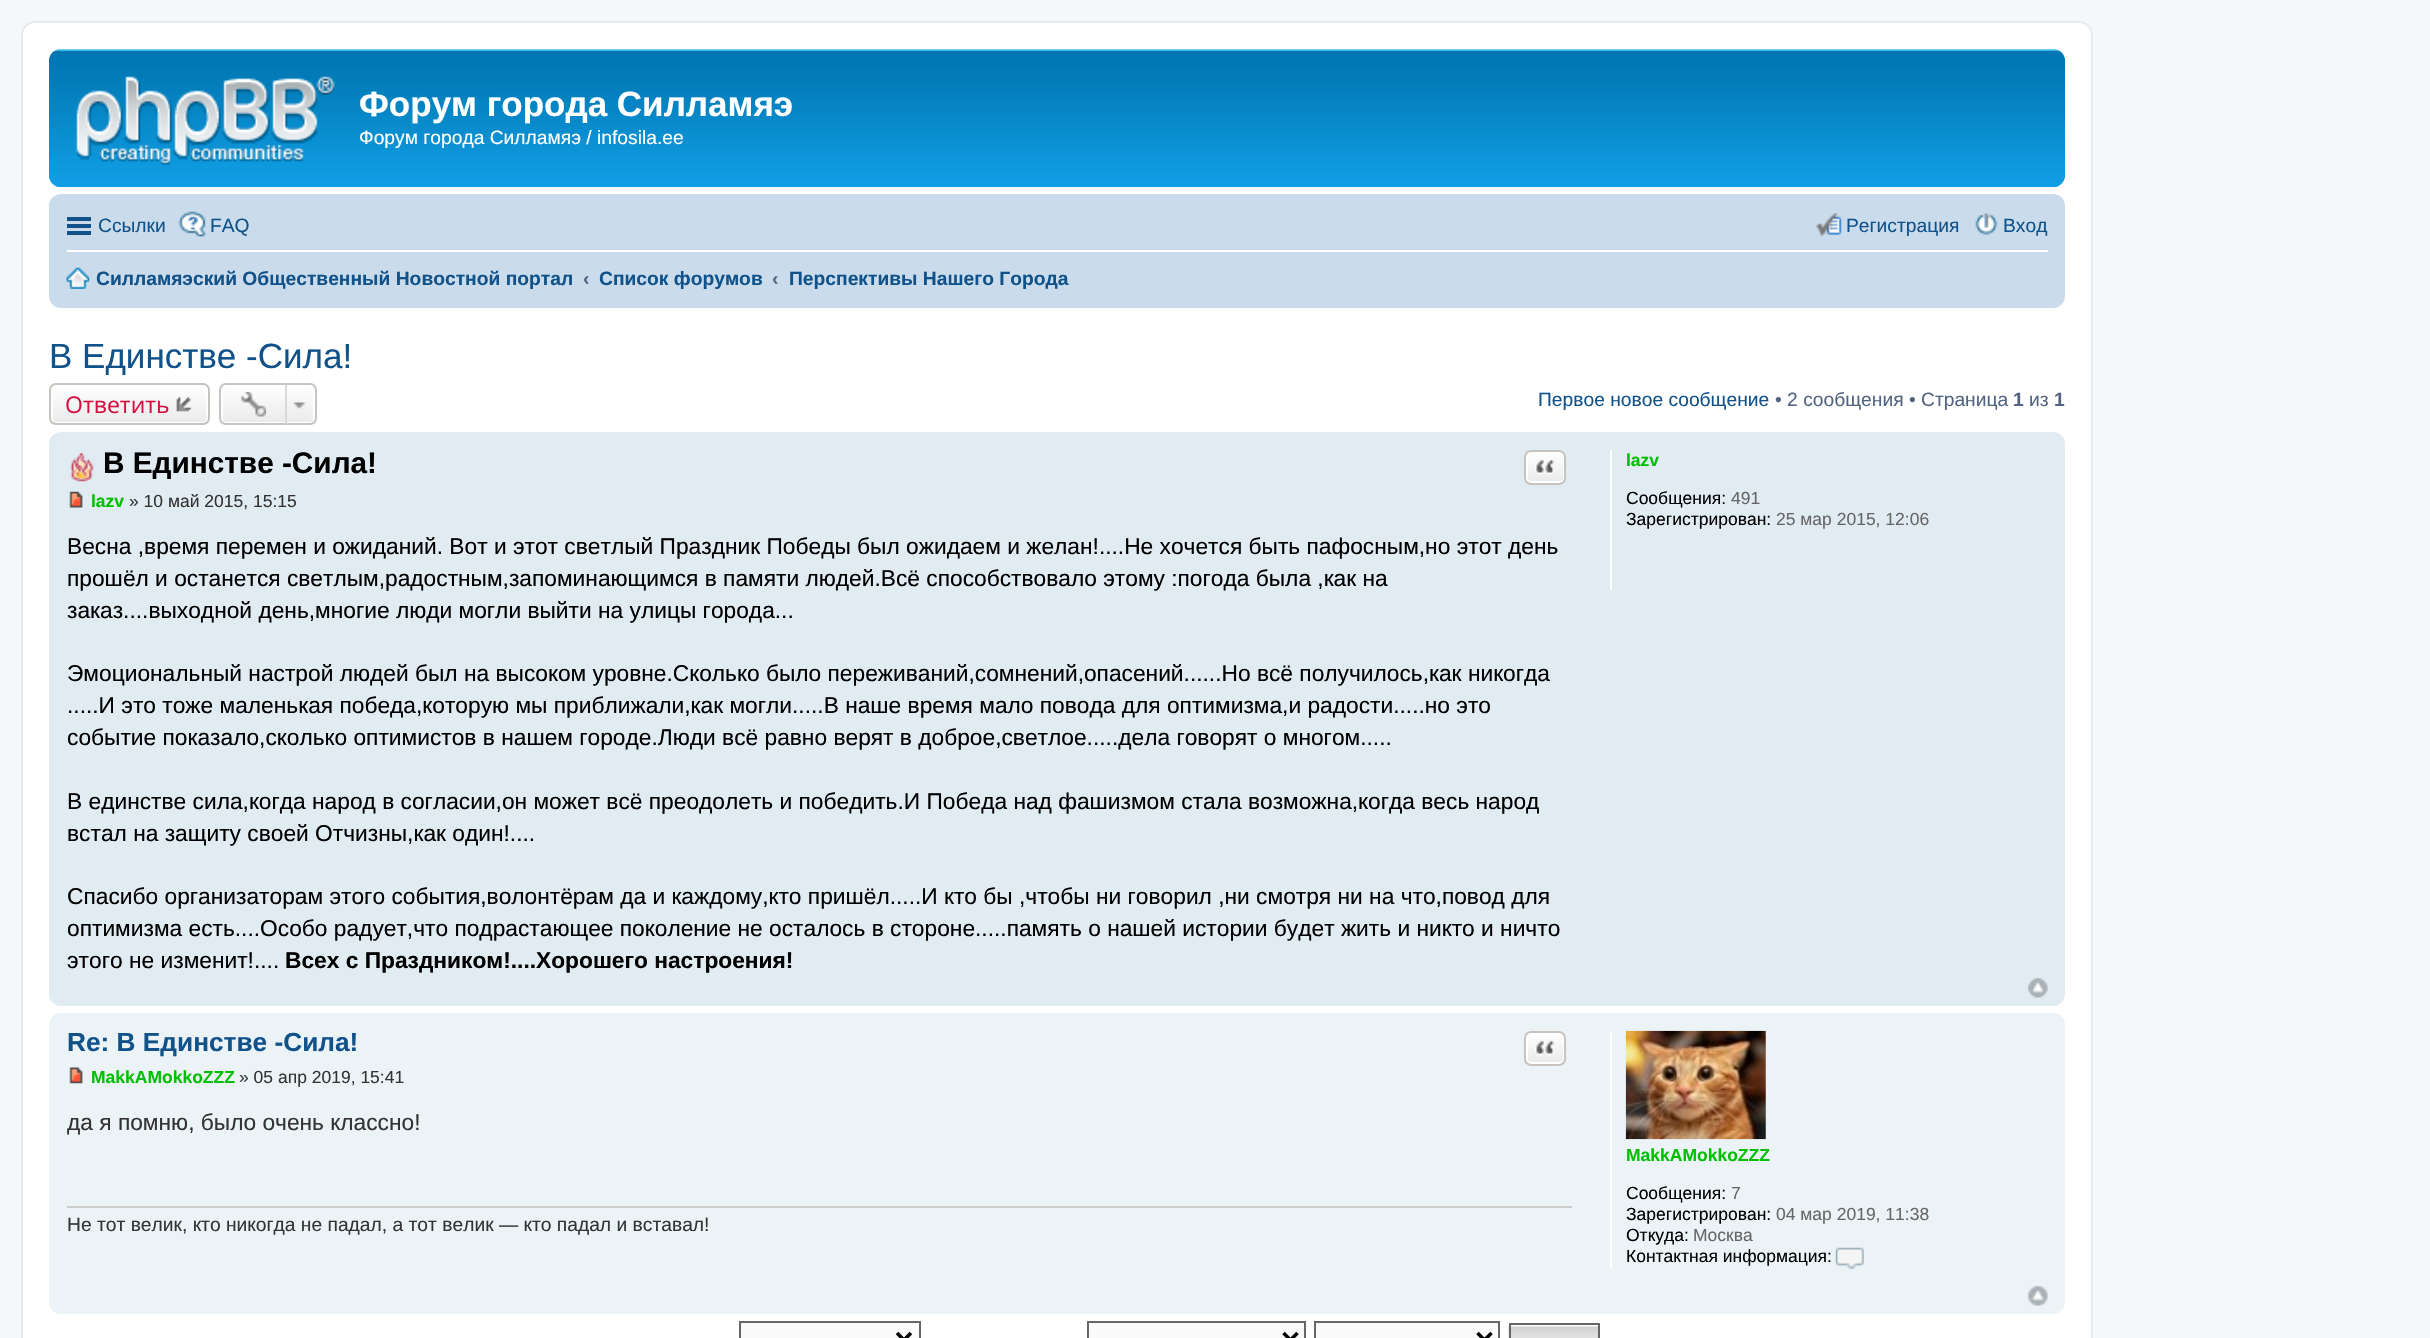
void draw(SkCanvas* canvas) {
    SkPaint paint;
    paint.setAntiAlias(true);
    canvas->clear(0xFFF5F7FA);
    paint.setColor(0xFFFFFFFF);
    canvas->drawRoundRect(SkRect::MakeXYWH(22, 22, 2070, 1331), 13, 13, paint);
    paint.setStyle(SkPaint::kStroke_Style);
    paint.setStrokeWidth(2);
    paint.setColor(0xFFE6E9ED);
    canvas->drawRoundRect(SkRect::MakeXYWH(22, 22, 2070, 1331), 13, 13, paint);
    paint.setStyle(SkPaint::kFill_Style);
    paint.setColor(0xFF12A3EB);
    canvas->drawRoundRect(SkRect::MakeXYWH(49, 49, 2016, 138), 12, 12, paint);
    canvas->drawImageRect(SkImages::DeferredFromEncodedData(SkData::MakeFromFileName("img1.png")), SkRect::MakeXYWH(49, 49, 2016, 139), SkSamplingOptions());
    canvas->drawImageRect(SkImages::DeferredFromEncodedData(SkData::MakeFromFileName("img2.png")), SkRect::MakeXYWH(76, 76, 259, 89), SkSamplingOptions());
    SkFont font1(fontMgr->matchFamilyStyle("Liberation Sans", SkFontStyle::Bold()), 35);
    font1.setSubpixel(true);
    paint.setColor(0xFFFFFFFF);
    canvas->drawString("Форум города Силламяэ", 359, 116, font1, paint);
    SkFont font2(fontMgr->matchFamilyStyle("Liberation Sans", SkFontStyle::Normal()), 19.25f);
    font2.setSubpixel(true);
    canvas->drawString("Форум города Силламяэ / infosila.ee", 359, 144, font2, paint);
    paint.setColor(0xFFCADCEB);
    canvas->drawRoundRect(SkRect::MakeXYWH(49, 194, 2016, 114), 12, 12, paint);
    paint.setColor(0xFF105289);
    canvas->drawRect(SkRect::MakeXYWH(67, 217, 24, 4), paint);
    canvas->drawRect(SkRect::MakeXYWH(67, 224, 24, 4), paint);
    canvas->drawRect(SkRect::MakeXYWH(67, 231, 24, 4), paint);
    canvas->drawString("Ссылки", 98, 232, font2, paint);
    canvas->drawImageRect(SkImages::DeferredFromEncodedData(SkData::MakeFromFileName("img3.png")), SkRect::MakeXYWH(178, 211, 29, 26), SkSamplingOptions());
    canvas->drawString("FAQ", 210, 232, font2, paint);
    canvas->drawImageRect(SkImages::DeferredFromEncodedData(SkData::MakeFromFileName("img4.png")), SkRect::MakeXYWH(1816, 213, 26, 24), SkSamplingOptions());
    canvas->drawString("Регистрация", 1846, 232, font2, paint);
    canvas->drawImageRect(SkImages::DeferredFromEncodedData(SkData::MakeFromFileName("img5.png")), SkRect::MakeXYWH(1975, 213, 23, 22), SkSamplingOptions());
    canvas->drawString("Вход", 2003, 232, font2, paint);
    paint.setColor(0xFFFFFFFF);
    canvas->drawRect(SkRect::MakeXYWH(67, 250, 1981, 2), paint);
    canvas->drawImageRect(SkImages::DeferredFromEncodedData(SkData::MakeFromFileName("img6.png")), SkRect::MakeXYWH(66, 267, 24, 22), SkSamplingOptions());
    SkFont font3(fontMgr->matchFamilyStyle("Liberation Sans", SkFontStyle::Bold()), 19.25f);
    font3.setSubpixel(true);
    paint.setColor(0xFF105289);
    canvas->drawString("Силламяэский Общественный Новостной портал", 96, 285, font3, paint);
    paint.setColor(0xFF536482);
    canvas->drawString("‹", 583, 285, font3, paint);
    paint.setColor(0xFF105289);
    canvas->drawString("Список форумов", 599, 285, font3, paint);
    paint.setColor(0xFF536482);
    canvas->drawString("‹", 772, 285, font3, paint);
    paint.setColor(0xFF105289);
    canvas->drawString("Перспективы Нашего Города", 789, 285, font3, paint);
    SkFont font4(fontMgr->matchFamilyStyle("Liberation Sans", SkFontStyle::Normal()), 35);
    font4.setSubpixel(true);
    canvas->drawString("В Единстве -Сила!", 49, 368, font4, paint);
    canvas->save();
    canvas->clipPath(SkPathBuilder().moveTo(56, 383).lineTo(203, 383).cubicTo(207, 383, 210, 386, 210, 390).lineTo(210, 418).cubicTo(210, 422, 207, 425, 203, 425).lineTo(56, 425).cubicTo(52, 425, 49, 422, 49, 418).lineTo(49, 390).cubicTo(49, 386, 52, 383, 56, 383).close().detach(), true);
    {
        const SkColor colors[] = {0xFFFFFFFF, 0xFFE9E9E9};
        const float stops[] = {0, 1};
        const SkPoint ends[] = {{130, 385}, {130, 424}};
        paint.setShader(SkGradientShader::MakeLinear(ends, colors, stops, 2, SkTileMode::kClamp));
        paint.setAlpha(255);
    }
    canvas->drawRect(SkRect::MakeXYWH(49, 385, 161, 39), paint);
    canvas->restore();
    paint.setStyle(SkPaint::kStroke_Style);
    paint.setShader(nullptr);
    paint.setColor(0xFFFFFFFF);
    canvas->drawRoundRect(SkRect::MakeXYWH(52, 386, 155, 37), 4, 4, paint);
    paint.setColor(0xFFC7C3BF);
    canvas->drawRoundRect(SkRect::MakeXYWH(50, 384, 159, 40), 6, 6, paint);
    SkFont font5(fontMgr->matchFamilyStyle("Open Sans", SkFontStyle::Normal()), 23);
    font5.setSubpixel(true);
    paint.setStyle(SkPaint::kFill_Style);
    paint.setColor(0xFFD31141);
    canvas->drawString("Ответить", 65, 413, font5, paint);
    canvas->drawImageRect(SkImages::DeferredFromEncodedData(SkData::MakeFromFileName("img7.png")), SkRect::MakeXYWH(176, 396, 16, 17), SkSamplingOptions());
    canvas->save();
    canvas->clipPath(SkPathBuilder().moveTo(226, 383).lineTo(310, 383).cubicTo(314, 383, 317, 386, 317, 390).lineTo(317, 418).cubicTo(317, 422, 314, 425, 310, 425).lineTo(226, 425).cubicTo(222, 425, 219, 422, 219, 418).lineTo(219, 390).cubicTo(219, 386, 222, 383, 226, 383).close().detach(), true);
    {
        const SkColor colors[] = {0xFFFFFFFF, 0xFFE9E9E9};
        const float stops[] = {0, 1};
        const SkPoint ends[] = {{268, 385}, {268, 424}};
        paint.setShader(SkGradientShader::MakeLinear(ends, colors, stops, 2, SkTileMode::kClamp));
        paint.setAlpha(255);
    }
    canvas->drawRect(SkRect::MakeXYWH(219, 385, 98, 39), paint);
    canvas->restore();
    paint.setStyle(SkPaint::kStroke_Style);
    paint.setShader(nullptr);
    paint.setColor(0xFFFFFFFF);
    canvas->drawRoundRect(SkRect::MakeXYWH(222, 386, 92, 37), 4, 4, paint);
    paint.setColor(0xFFC7C3BF);
    canvas->drawRoundRect(SkRect::MakeXYWH(220, 384, 96, 40), 6, 6, paint);
    canvas->drawImageRect(SkImages::DeferredFromEncodedData(SkData::MakeFromFileName("img8.png")), SkRect::MakeXYWH(241, 392, 25, 26), SkSamplingOptions());
    canvas->drawImageRect(SkImages::DeferredFromEncodedData(SkData::MakeFromFileName("img9.png")), SkRect::MakeXYWH(293, 402, 13, 7), SkSamplingOptions());
    paint.setStyle(SkPaint::kFill_Style);
    paint.setColor(0xFFDADADA);
    canvas->drawRect(SkRect::MakeXYWH(285, 385, 2, 39), paint);
    paint.setColor(0xFF105289);
    canvas->drawString("Первое новое сообщение", 1538, 406, font2, paint);
    paint.setColor(0xFF536482);
    canvas->drawString("• 2 сообщения • Страница", 1775, 406, font2, paint);
    canvas->drawString("1", 2013, 406, font3, paint);
    canvas->drawString("из", 2029, 406, font2, paint);
    canvas->drawString("1", 2054, 406, font3, paint);
    paint.setColor(0xFFE1EBF2);
    canvas->drawRoundRect(SkRect::MakeXYWH(49, 432, 2016, 574), 12, 12, paint);
    canvas->drawImageRect(SkImages::DeferredFromEncodedData(SkData::MakeFromFileName("img10.png")), SkRect::MakeXYWH(69, 453, 25, 29), SkSamplingOptions());
    SkFont font6(fontMgr->matchFamilyStyle("Liberation Sans", SkFontStyle::Bold()), 29.75f);
    font6.setSubpixel(true);
    paint.setColor(0xFF000000);
    canvas->drawString("В Единстве -Сила!", 103, 473, font6, paint);
    canvas->save();
    canvas->clipPath(SkPathBuilder().moveTo(1531, 450).lineTo(1559, 450).cubicTo(1563, 450, 1566, 453, 1566, 457).lineTo(1566, 478).cubicTo(1566, 482, 1563, 485, 1559, 485).lineTo(1531, 485).cubicTo(1527, 485, 1524, 482, 1524, 478).lineTo(1524, 457).cubicTo(1524, 453, 1527, 450, 1531, 450).close().detach(), true);
    {
        const SkColor colors[] = {0xFFFFFFFF, 0xFFE9E9E9};
        const float stops[] = {0, 1};
        const SkPoint ends[] = {{1545, 452}, {1545, 483}};
        paint.setShader(SkGradientShader::MakeLinear(ends, colors, stops, 2, SkTileMode::kClamp));
        paint.setAlpha(255);
    }
    canvas->drawRect(SkRect::MakeXYWH(1524, 452, 42, 31), paint);
    canvas->restore();
    paint.setStyle(SkPaint::kStroke_Style);
    paint.setShader(nullptr);
    paint.setColor(0xFFFFFFFF);
    canvas->drawRoundRect(SkRect::MakeXYWH(1527, 453, 37, 29), 4, 4, paint);
    paint.setColor(0xFFC7C3BF);
    canvas->drawRoundRect(SkRect::MakeXYWH(1525, 451, 40, 33), 6, 6, paint);
    canvas->drawImageRect(SkImages::DeferredFromEncodedData(SkData::MakeFromFileName("img11.png")), SkRect::MakeXYWH(1535, 459, 20, 16), SkSamplingOptions());
    canvas->drawImageRect(SkImages::DeferredFromEncodedData(SkData::MakeFromFileName("img12.png")), SkRect::MakeXYWH(69, 491, 14, 17), SkSamplingOptions());
    SkFont font7(fontMgr->matchFamilyStyle("Liberation Sans", SkFontStyle::Bold()), 17.5f);
    font7.setSubpixel(true);
    paint.setStyle(SkPaint::kFill_Style);
    paint.setColor(0xFF00BF00);
    canvas->drawString("lazv", 91, 507, font7, paint);
    SkFont font8(fontMgr->matchFamilyStyle("Liberation Sans", SkFontStyle::Normal()), 17.5f);
    font8.setSubpixel(true);
    paint.setColor(0xFF333333);
    canvas->drawString("» 10 май 2015, 15:15", 129, 507, font8, paint);
    SkFont font9(fontMgr->matchFamilyStyle("Liberation Sans", SkFontStyle::Normal()), 22.75f);
    font9.setSubpixel(true);
    paint.setColor(0xFF000000);
    canvas->drawString("Весна ,время перемен и ожиданий. Вот и этот светлый Праздник Победы был ожидаем и желан!....Не хочется быть пафосным,но этот день", 67, 554, font9, paint);
    canvas->drawString("прошёл и останется светлым,радостным,запоминающимся в памяти людей.Всё способствовало этому :погода была ,как на", 67, 586, font9, paint);
    canvas->drawString("заказ....выходной день,многие люди могли выйти на улицы города...", 67, 618, font9, paint);
    canvas->drawString("Эмоциональный настрой людей был на высоком уровне.Сколько было переживаний,сомнений,опасений......Но всё получилось,как никогда", 67, 681, font9, paint);
    canvas->drawString(".....И это тоже маленькая победа,которую мы приближали,как могли.....В наше время мало повода для оптимизма,и радости.....но это", 67, 713, font9, paint);
    canvas->drawString("событие показало,сколько оптимистов в нашем городе.Люди всё равно верят в доброе,светлое.....дела говорят о многом.....", 67, 745, font9, paint);
    canvas->drawString("В единстве сила,когда народ в согласии,он может всё преодолеть и победить.И Победа над фашизмом стала возможна,когда весь народ", 67, 809, font9, paint);
    canvas->drawString("встал на защиту своей Отчизны,как один!....", 67, 841, font9, paint);
    canvas->drawString("Спасибо организаторам этого события,волонтёрам да и каждому,кто пришёл.....И кто бы ,чтобы ни говорил ,ни смотря ни на что,повод для", 67, 904, font9, paint);
    canvas->drawString("оптимизма есть....Особо радует,что подрастающее поколение не осталось в стороне.....память о нашей истории будет жить и никто и ничто", 67, 936, font9, paint);
    canvas->drawString("этого не изменит!....", 67, 968, font9, paint);
    SkFont font10(fontMgr->matchFamilyStyle("Liberation Sans", SkFontStyle::Bold()), 22.75f);
    font10.setSubpixel(true);
    canvas->drawString("Всех с Праздником!....Хорошего настроения!", 285, 968, font10, paint);
    paint.setColor(0xFFFFFFFF);
    canvas->drawRect(SkRect::MakeXYWH(1610, 450, 2, 140), paint);
    paint.setColor(0xFF00BF00);
    canvas->drawString("lazv", 1626, 466, font7, paint);
    paint.setColor(0xFF000000);
    canvas->drawString("Сообщения:", 1626, 504, font8, paint);
    paint.setColor(0xFF666666);
    canvas->drawString("491", 1731, 504, font8, paint);
    paint.setColor(0xFF000000);
    canvas->drawString("Зарегистрирован:", 1626, 525, font8, paint);
    paint.setColor(0xFF666666);
    canvas->drawString("25 мар 2015, 12:06", 1776, 525, font8, paint);
    canvas->drawImageRect(SkImages::DeferredFromEncodedData(SkData::MakeFromFileName("img13.png")), SkRect::MakeXYWH(2028, 978, 20, 20), SkSamplingOptions());
    paint.setColor(0xFFECF3F7);
    canvas->drawRoundRect(SkRect::MakeXYWH(49, 1013, 2016, 301), 12, 12, paint);
    SkFont font11(fontMgr->matchFamilyStyle("Liberation Sans", SkFontStyle::Bold()), 26.25f);
    font11.setSubpixel(true);
    paint.setColor(0xFF105289);
    canvas->drawString("Re: В Единстве -Сила!", 67, 1051, font11, paint);
    canvas->save();
    canvas->clipPath(SkPathBuilder().moveTo(1531, 1031).lineTo(1559, 1031).cubicTo(1563, 1031, 1566, 1034, 1566, 1038).lineTo(1566, 1059).cubicTo(1566, 1063, 1563, 1066, 1559, 1066).lineTo(1531, 1066).cubicTo(1527, 1066, 1524, 1063, 1524, 1059).lineTo(1524, 1038).cubicTo(1524, 1034, 1527, 1031, 1531, 1031).close().detach(), true);
    {
        const SkColor colors[] = {0xFFFFFFFF, 0xFFE9E9E9};
        const float stops[] = {0, 1};
        const SkPoint ends[] = {{1545, 1033}, {1545, 1064}};
        paint.setShader(SkGradientShader::MakeLinear(ends, colors, stops, 2, SkTileMode::kClamp));
        paint.setAlpha(255);
    }
    canvas->drawRect(SkRect::MakeXYWH(1524, 1033, 42, 31), paint);
    canvas->restore();
    paint.setStyle(SkPaint::kStroke_Style);
    paint.setShader(nullptr);
    paint.setColor(0xFFFFFFFF);
    canvas->drawRoundRect(SkRect::MakeXYWH(1527, 1034, 37, 29), 4, 4, paint);
    paint.setColor(0xFFC7C3BF);
    canvas->drawRoundRect(SkRect::MakeXYWH(1525, 1032, 40, 33), 6, 6, paint);
    canvas->drawImageRect(SkImages::DeferredFromEncodedData(SkData::MakeFromFileName("img11.png")), SkRect::MakeXYWH(1535, 1040, 20, 16), SkSamplingOptions());
    canvas->drawImageRect(SkImages::DeferredFromEncodedData(SkData::MakeFromFileName("img14.png")), SkRect::MakeXYWH(69, 1067, 14, 17), SkSamplingOptions());
    paint.setStyle(SkPaint::kFill_Style);
    paint.setColor(0xFF00BF00);
    canvas->drawString("MakkAMokkoZZZ", 91, 1083, font7, paint);
    paint.setColor(0xFF333333);
    canvas->drawString("» 05 апр 2019, 15:41", 239, 1083, font8, paint);
    canvas->save();
    canvas->clipRect(SkRect::MakeXYWH(67, 1108, 1505, 70));
    canvas->drawString("да я помню, было очень классно!", 67, 1130, font9, paint);
    canvas->restore();
    paint.setColor(0xFFCCCCCC);
    canvas->drawRect(SkRect::MakeXYWH(67, 1206, 1505, 2), paint);
    paint.setColor(0xFF333333);
    canvas->drawString("Не тот велик, кто никогда не падал, а тот велик — кто падал и вставал!", 67, 1231, font2, paint);
    paint.setColor(0xFFFFFFFF);
    canvas->drawRect(SkRect::MakeXYWH(1610, 1031, 2, 238), paint);
    canvas->drawImageRect(SkImages::DeferredFromEncodedData(SkData::MakeFromFileName("img15.png")), SkRect::MakeXYWH(1625, 1030, 141, 110), SkSamplingOptions());
    paint.setColor(0xFF00BF00);
    canvas->drawString("MakkAMokkoZZZ", 1626, 1161, font7, paint);
    paint.setColor(0xFF000000);
    canvas->drawString("Сообщения:", 1626, 1199, font8, paint);
    paint.setColor(0xFF666666);
    canvas->drawString("7", 1731, 1199, font8, paint);
    paint.setColor(0xFF000000);
    canvas->drawString("Зарегистрирован:", 1626, 1220, font8, paint);
    paint.setColor(0xFF666666);
    canvas->drawString("04 мар 2019, 11:38", 1776, 1220, font8, paint);
    paint.setColor(0xFF000000);
    canvas->drawString("Откуда:", 1626, 1241, font8, paint);
    paint.setColor(0xFF666666);
    canvas->drawString("Москва", 1693, 1241, font8, paint);
    paint.setColor(0xFF000000);
    canvas->drawString("Контактная информация:", 1626, 1262, font8, paint);
    canvas->drawImageRect(SkImages::DeferredFromEncodedData(SkData::MakeFromFileName("img16.png")), SkRect::MakeXYWH(1835, 1247, 29, 22), SkSamplingOptions());
    canvas->drawImageRect(SkImages::DeferredFromEncodedData(SkData::MakeFromFileName("img17.png")), SkRect::MakeXYWH(2028, 1286, 20, 20), SkSamplingOptions());
    paint.setColor(0xFFFAFAFA);
    canvas->drawRect(SkRect::MakeXYWH(740, 1322, 180, 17), paint);
    paint.setStyle(SkPaint::kStroke_Style);
    paint.setColor(0xFF666666);
    canvas->drawRect(SkRect::MakeXYWH(740, 1322, 180, 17), paint);
    paint.setStrokeWidth(3.5f);
    paint.setColor(0xFF000000);
    canvas->drawPath(SkPathBuilder().moveTo(897, 1333).lineTo(904, 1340).lineTo(911, 1333).detach(), paint);
    paint.setStyle(SkPaint::kFill_Style);
    paint.setColor(0xFFFAFAFA);
    canvas->drawRect(SkRect::MakeXYWH(1088, 1322, 217, 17), paint);
    paint.setStyle(SkPaint::kStroke_Style);
    paint.setStrokeWidth(2);
    paint.setColor(0xFF666666);
    canvas->drawRect(SkRect::MakeXYWH(1088, 1322, 217, 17), paint);
    paint.setStrokeWidth(3.5f);
    paint.setColor(0xFF000000);
    canvas->drawPath(SkPathBuilder().moveTo(1283.5f, 1333).lineTo(1290.5f, 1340).lineTo(1297.5f, 1333).detach(), paint);
    paint.setStyle(SkPaint::kFill_Style);
    paint.setColor(0xFFFAFAFA);
    canvas->drawRect(SkRect::MakeXYWH(1315, 1322, 184, 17), paint);
    paint.setStyle(SkPaint::kStroke_Style);
    paint.setStrokeWidth(2);
    paint.setColor(0xFF666666);
    canvas->drawRect(SkRect::MakeXYWH(1315, 1322, 184, 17), paint);
    paint.setStrokeWidth(3.5f);
    paint.setColor(0xFF000000);
    canvas->drawPath(SkPathBuilder().moveTo(1477.5f, 1333).lineTo(1484.5f, 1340).lineTo(1491.5f, 1333).detach(), paint);
    canvas->drawImageRect(SkImages::DeferredFromEncodedData(SkData::MakeFromFileName("img18.png")), SkRect::MakeXYWH(1508, 1325, 90, 13), SkSamplingOptions());
    paint.setStrokeWidth(2);
    paint.setColor(0xFF666666);
    canvas->drawRect(SkRect::MakeXYWH(1510, 1324, 89, 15), paint);
}
